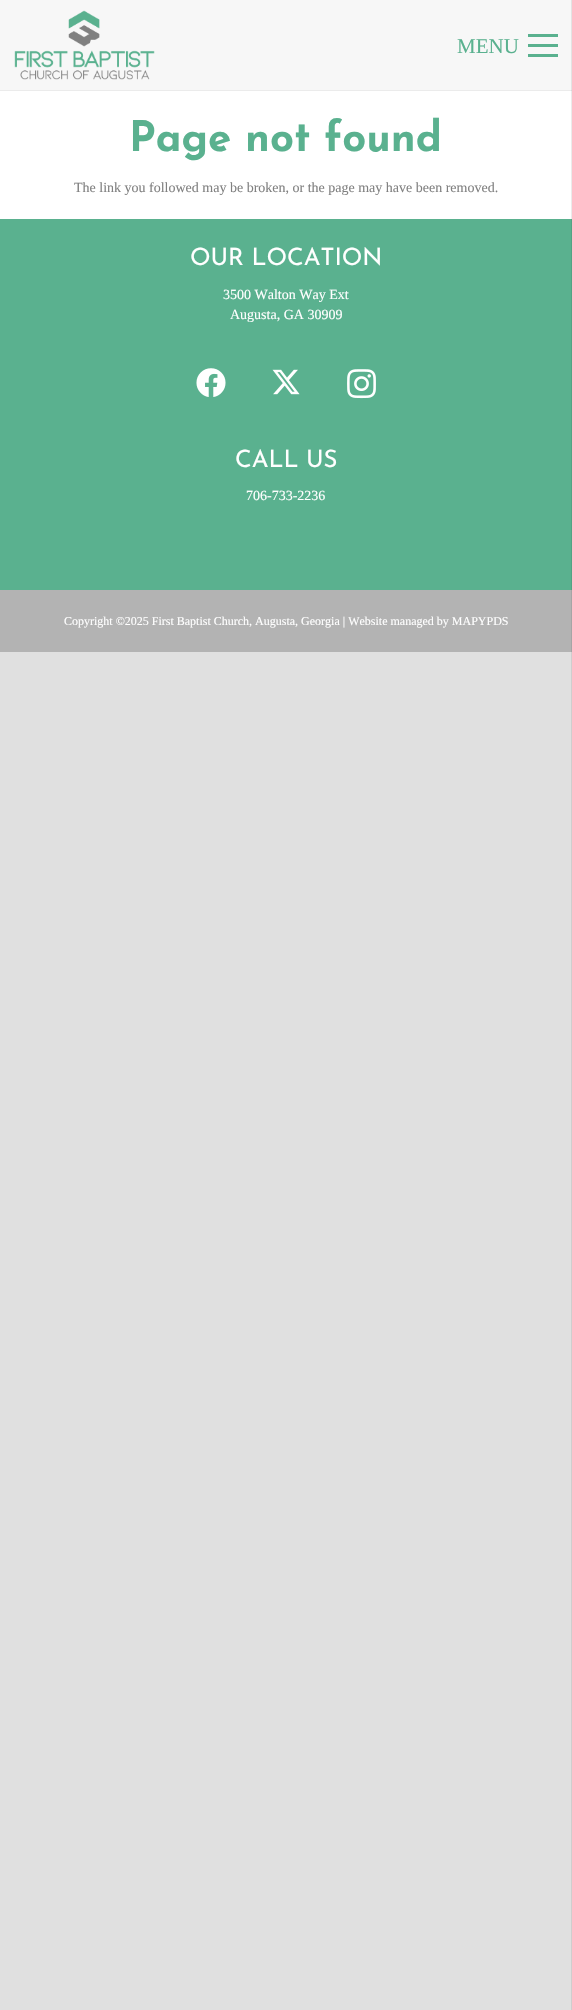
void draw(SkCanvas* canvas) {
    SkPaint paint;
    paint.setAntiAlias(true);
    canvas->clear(0xFFE0E0E0);
    paint.setColor(0xFFCECECE);
    canvas->drawRect(SkRect::MakeXYWH(571, 652, 1, 1358), paint);
    paint.setColor(0xFFFFFFFF);
    canvas->drawRect(SkRect::MakeXYWH(0, 91, 571, 128), paint);
    paint.setColor(0xFFEBEBEB);
    canvas->drawRect(SkRect::MakeXYWH(571, 91, 1, 128), paint);
    canvas->drawRect(SkRect::MakeXYWH(0, 90, 572, 1), paint);
    paint.setColor(0xFFD8D8D8);
    canvas->drawRect(SkRect::MakeXYWH(571, 90, 1, 1), paint);
    paint.setColor(0xFFF7F7F7);
    canvas->drawRect(SkRect::MakeXYWH(0, 0, 571, 90), paint);
    paint.setColor(0xFFE3E3E3);
    canvas->drawRect(SkRect::MakeXYWH(571, 0, 1, 90), paint);
    canvas->drawImageRect(SkImages::DeferredFromEncodedData(SkData::MakeFromFileName("img1.png")), SkRect::MakeXYWH(14, 10, 141, 70), SkSamplingOptions());
    SkFont font1(fontMgr->matchFamilyStyle("Liberation Serif", SkFontStyle::Normal()), 21);
    font1.setSubpixel(true);
    paint.setColor(0xFF5AB18F);
    canvas->drawString("MENU", 457, 53, font1, paint);
    canvas->drawRect(SkRect::MakeXYWH(528, 44, 30, 3), paint);
    canvas->drawRect(SkRect::MakeXYWH(528, 34, 30, 3), paint);
    canvas->drawRect(SkRect::MakeXYWH(528, 54, 30, 3), paint);
    SkFont font2(fontMgr->matchFamilyStyle("Josefin Sans", SkFontStyle::Bold()), 42);
    font2.setSubpixel(true);
    canvas->drawString("Page not found", 129, 151, font2, paint);
    SkFont font3(fontMgr->matchFamilyStyle("Liberation Serif", SkFontStyle::Normal()), 14);
    font3.setSubpixel(true);
    paint.setColor(0xFF808080);
    canvas->drawString("The link you followed may be broken, or the page may have been removed.", 74, 192, font3, paint);
    paint.setColor(0xFF5AB18F);
    canvas->drawRect(SkRect::MakeXYWH(0, 219, 571, 371), paint);
    paint.setColor(0xFF53A384);
    canvas->drawRect(SkRect::MakeXYWH(571, 219, 1, 371), paint);
    SkFont font4(fontMgr->matchFamilyStyle("Josefin Sans", SkFontStyle::Normal()), 24);
    font4.setSubpixel(true);
    paint.setColor(0xFFFFFFFF);
    canvas->drawString("OUR LOCATION", 190, 265, font4, paint);
    canvas->drawString("3500 Walton Way Ext", 223, 299, font3, paint);
    canvas->drawString("Augusta, GA 30909", 230, 319, font3, paint);
    canvas->drawImageRect(SkImages::DeferredFromEncodedData(SkData::MakeFromFileName("img2.png")), SkRect::MakeXYWH(196, 368, 30, 29), SkSamplingOptions());
    canvas->drawImageRect(SkImages::DeferredFromEncodedData(SkData::MakeFromFileName("img3.png")), SkRect::MakeXYWH(272, 369, 28, 26), SkSamplingOptions());
    canvas->drawImageRect(SkImages::DeferredFromEncodedData(SkData::MakeFromFileName("img4.png")), SkRect::MakeXYWH(347, 369, 29, 30), SkSamplingOptions());
    canvas->drawString("CALL US", 235, 467, font4, paint);
    canvas->drawString("706-733-2236", 246, 500, font3, paint);
    paint.setColor(0xFFB3B3B3);
    canvas->drawRect(SkRect::MakeXYWH(0, 590, 571, 62), paint);
    paint.setColor(0xFFA5A5A5);
    canvas->drawRect(SkRect::MakeXYWH(571, 590, 1, 62), paint);
    SkFont font5(fontMgr->matchFamilyStyle("Liberation Serif", SkFontStyle::Normal()), 12);
    font5.setSubpixel(true);
    paint.setColor(0xFFFFFFFF);
    canvas->drawString("Copyright ©2025 First Baptist Church, Augusta, Georgia | Website managed by MAPYPDS", 64, 625, font5, paint);
}
